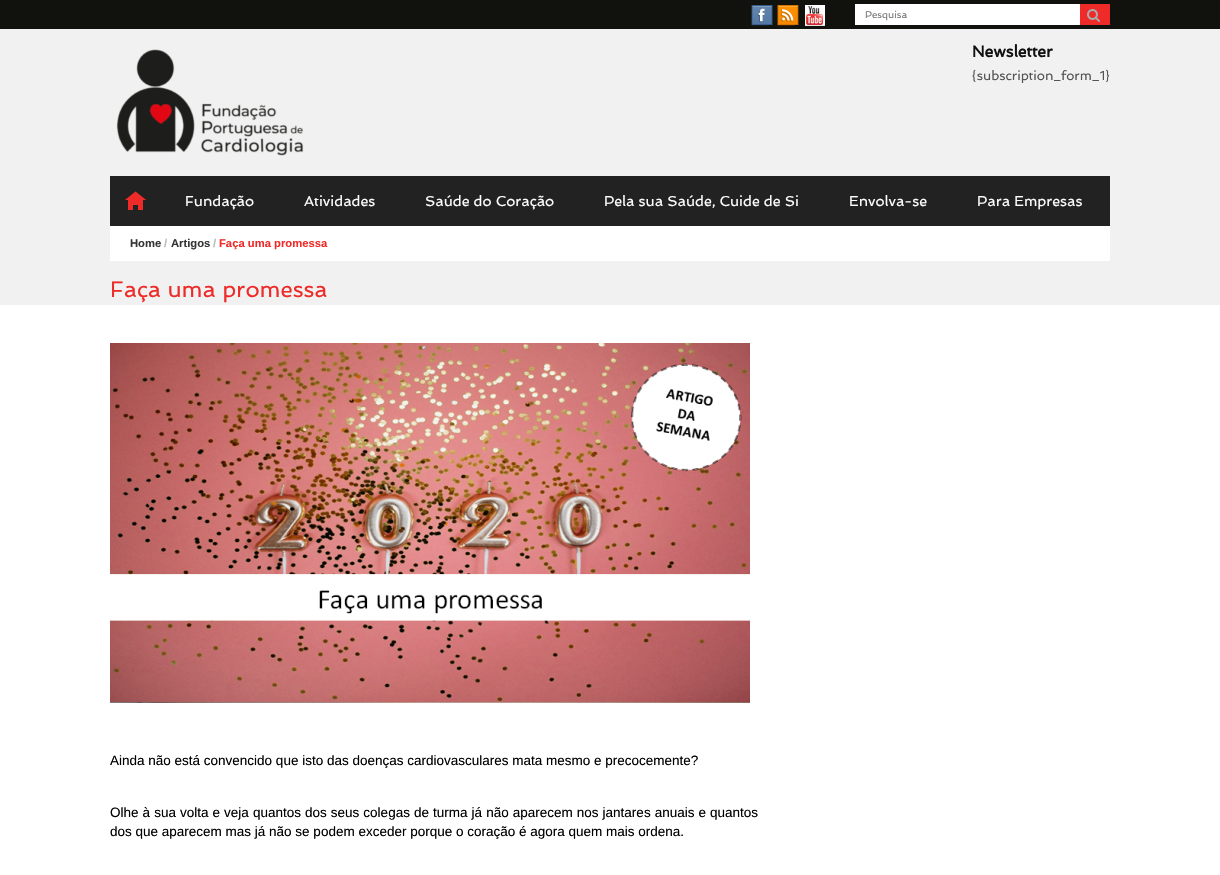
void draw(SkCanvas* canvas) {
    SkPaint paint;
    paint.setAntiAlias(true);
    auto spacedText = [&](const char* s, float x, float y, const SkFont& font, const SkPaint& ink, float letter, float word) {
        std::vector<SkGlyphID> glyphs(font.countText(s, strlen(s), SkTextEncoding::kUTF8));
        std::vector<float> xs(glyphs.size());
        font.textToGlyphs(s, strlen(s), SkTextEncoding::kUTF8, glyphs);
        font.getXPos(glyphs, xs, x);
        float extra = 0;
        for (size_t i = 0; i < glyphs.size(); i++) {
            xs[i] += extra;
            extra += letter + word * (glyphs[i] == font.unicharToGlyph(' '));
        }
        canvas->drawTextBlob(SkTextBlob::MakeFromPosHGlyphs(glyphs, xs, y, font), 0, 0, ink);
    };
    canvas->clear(0xFFFFFFFF);
    paint.setColor(0xFFF1F1F1);
    canvas->drawRect(SkRect::MakeXYWH(0, 29, 1220, 276), paint);
    paint.setColor(0xFF11120E);
    canvas->drawRect(SkRect::MakeXYWH(0, 0, 1220, 29), paint);
    canvas->drawImageRect(SkImages::DeferredFromEncodedData(SkData::MakeFromFileName("img1.png")), SkRect::MakeXYWH(751, 5, 22, 21), SkSamplingOptions());
    canvas->drawImageRect(SkImages::DeferredFromEncodedData(SkData::MakeFromFileName("img2.png")), SkRect::MakeXYWH(777, 5, 22, 21), SkSamplingOptions());
    canvas->drawImageRect(SkImages::DeferredFromEncodedData(SkData::MakeFromFileName("img3.png")), SkRect::MakeXYWH(805, 5, 20, 21), SkSamplingOptions());
    paint.setColor(0xFFEE2B28);
    canvas->drawRect(SkRect::MakeXYWH(1080, 4, 30, 21), paint);
    paint.setColor(0xFFFFFFFF);
    canvas->drawRect(SkRect::MakeXYWH(855, 4, 225, 21), paint);
    SkFont font1(fontMgr->matchFamilyStyle("Spinnaker", SkFontStyle::Normal()), 9.75f);
    font1.setSubpixel(true);
    paint.setColor(0xFF777777);
    canvas->drawString("Pesquisa", 865, 18, font1, paint);
    canvas->drawImageRect(SkImages::DeferredFromEncodedData(SkData::MakeFromFileName("img4.png")), SkRect::MakeXYWH(1087, 9, 13, 13), SkSamplingOptions());
    canvas->drawImageRect(SkImages::DeferredFromEncodedData(SkData::MakeFromFileName("img5.png")), SkRect::MakeXYWH(116, 49, 188, 107), SkSamplingOptions());
    SkFont font2(fontMgr->matchFamilyStyle("Spinnaker", SkFontStyle::Bold()), 16);
    font2.setSubpixel(true);
    paint.setColor(0xFF111111);
    canvas->drawString("Newsletter", 972, 57, font2, paint);
    SkFont font3(fontMgr->matchFamilyStyle("Spinnaker", SkFontStyle::Normal()), 13);
    font3.setSubpixel(true);
    paint.setColor(0xFF555555);
    canvas->drawString("{subscription_form_1}", 972, 80, font3, paint);
    paint.setColor(0xFF222222);
    canvas->drawRect(SkRect::MakeXYWH(110, 176, 1000, 50), paint);
    canvas->drawImageRect(SkImages::DeferredFromEncodedData(SkData::MakeFromFileName("img6.png")), SkRect::MakeXYWH(125, 191, 21, 19), SkSamplingOptions());
    SkFont font4(fontMgr->matchFamilyStyle("Spinnaker", SkFontStyle::Normal()), 14.4f);
    font4.setSubpixel(true);
    paint.setColor(0xFFFFFFFF);
    canvas->drawString("Fundação", 185, 206, font4, paint);
    canvas->drawString("Atividades", 304, 206, font4, paint);
    canvas->drawString("Saúde do Coração", 425, 206, font4, paint);
    canvas->drawString("Pela sua Saúde, Cuide de Si", 604, 206, font4, paint);
    canvas->drawString("Envolva-se", 849, 206, font4, paint);
    canvas->drawString("Para Empresas", 977, 206, font4, paint);
    canvas->drawRect(SkRect::MakeXYWH(110, 226, 1000, 35), paint);
    SkFont font5(fontMgr->matchFamilyStyle("Liberation Sans", SkFontStyle::Bold()), 11.25f);
    font5.setSubpixel(true);
    paint.setColor(0xFF353535);
    canvas->drawString("Home", 130, 247, font5, paint);
    paint.setColor(0xFFBCBCBC);
    canvas->drawString("/", 164, 247, font5, paint);
    paint.setColor(0xFF353535);
    canvas->drawString("Artigos", 171, 247, font5, paint);
    paint.setColor(0xFFBCBCBC);
    canvas->drawString("/", 213, 247, font5, paint);
    paint.setColor(0xFFEE2B28);
    canvas->drawString("Faça uma promessa", 219, 247, font5, paint);
    SkFont font6(fontMgr->matchFamilyStyle("Spinnaker", SkFontStyle::Normal()), 22.5f);
    font6.setSubpixel(true);
    canvas->drawString("Faça uma promessa", 110, 297, font6, paint);
    canvas->drawImageRect(SkImages::DeferredFromEncodedData(SkData::MakeFromFileName("img7.png")), SkRect::MakeXYWH(110, 343, 640, 360), SkSamplingOptions());
    SkFont font7(fontMgr->matchFamilyStyle("Liberation Sans", SkFontStyle::Normal()), 13.5f);
    font7.setSubpixel(true);
    paint.setColor(0xFF000000);
    canvas->drawString("Ainda não está convencido que isto das doenças cardiovasculares mata mesmo e precocemente?", 110, 765, font7, paint);
    spacedText("Olhe à sua volta e veja quantos dos seus colegas de turma já não aparecem nos jantares anuais e quantos", 110, 817, font7, paint, 0, 0.3f);
    canvas->drawString("dos que aparecem mas já não se podem exceder porque o coração é agora quem mais ordena.", 110, 836, font7, paint);
}
